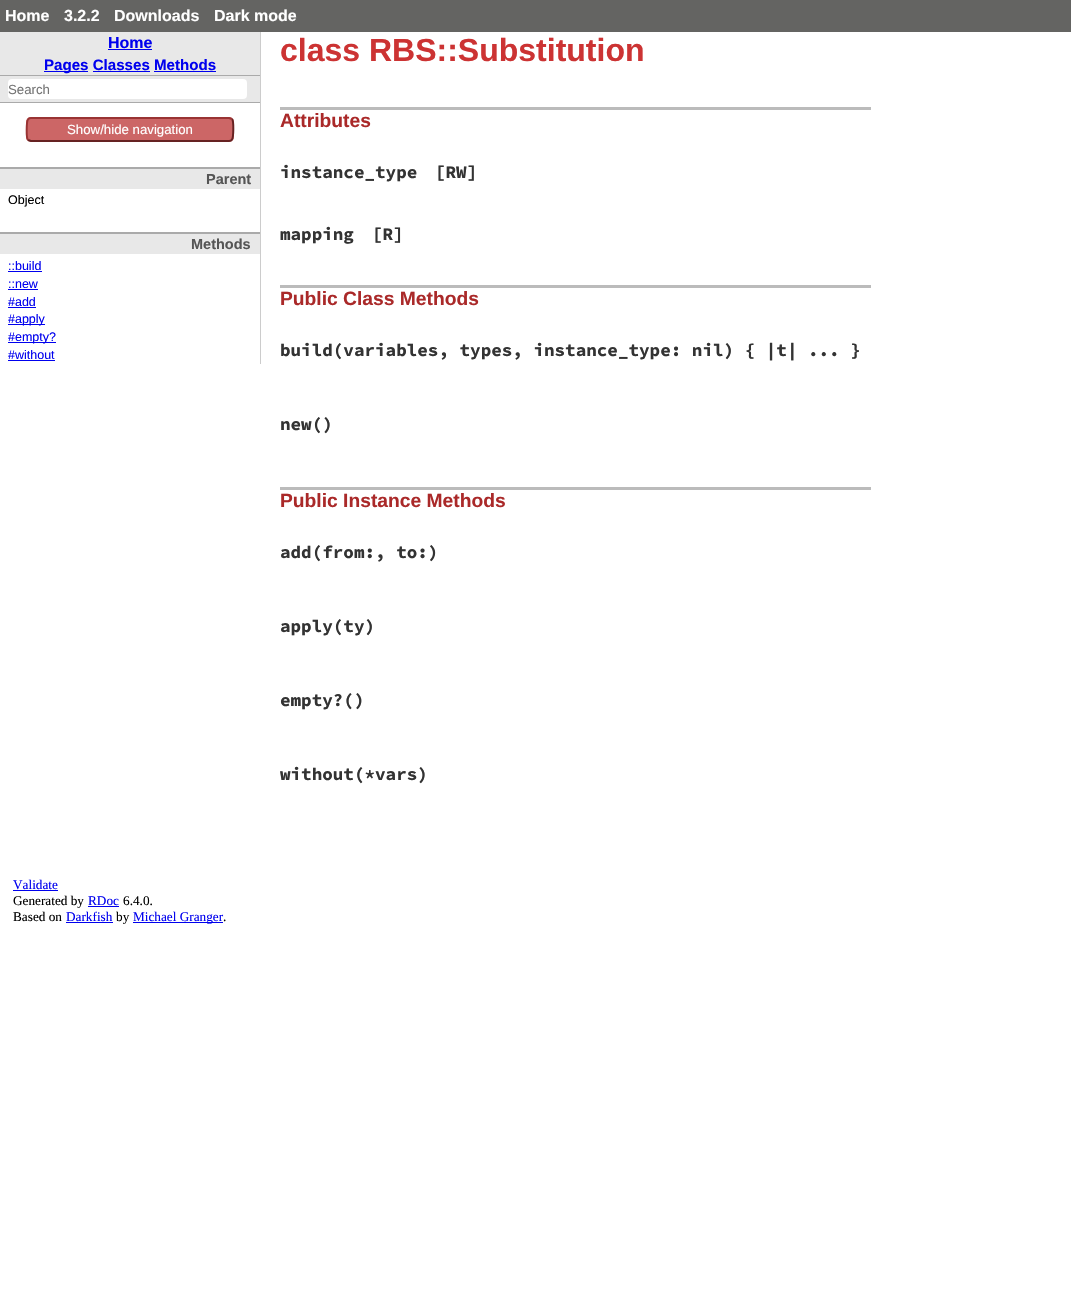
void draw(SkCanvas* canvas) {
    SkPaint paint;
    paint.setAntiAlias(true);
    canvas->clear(0xFFFFFFFF);
    paint.setColor(0xFF646462);
    canvas->drawRect(SkRect::MakeXYWH(0, 0, 1071, 32), paint);
    SkFont font1(fontMgr->matchFamilyStyle("Liberation Sans", SkFontStyle::Bold()), 16);
    font1.setSubpixel(true);
    paint.setColor(0xFFFFFFFF);
    canvas->drawString("Home", 5, 21, font1, paint);
    canvas->drawString("3.2.2", 64, 21, font1, paint);
    canvas->drawString("Downloads", 114, 21, font1, paint);
    canvas->drawString("Dark mode", 214, 21, font1, paint);
    paint.setColor(0xFFCCCCCC);
    canvas->drawRect(SkRect::MakeXYWH(260, 32, 1, 332), paint);
    paint.setColor(0xFFE8E8E8);
    canvas->drawRect(SkRect::MakeXYWH(0, 32, 260, 43), paint);
    paint.setColor(0xFF0000EE);
    canvas->drawString("Home", 108, 48, font1, paint);
    canvas->drawRect(SkRect::MakeXYWH(108, 49, 44, 1), paint);
    canvas->drawRect(SkRect::MakeXYWH(44, 71, 44, 1), paint);
    SkFont font2(fontMgr->matchFamilyStyle("Liberation Sans", SkFontStyle::Bold()), 15.1f);
    font2.setSubpixel(true);
    canvas->drawString("Pages Classes Methods", 44, 70, font2, paint);
    canvas->drawRect(SkRect::MakeXYWH(93, 71, 57, 1), paint);
    canvas->drawRect(SkRect::MakeXYWH(154, 71, 62, 1), paint);
    paint.setColor(0xFFE8E8E8);
    canvas->drawRect(SkRect::MakeXYWH(0, 76, 260, 26), paint);
    paint.setColor(0xFFAAAAAA);
    canvas->drawRect(SkRect::MakeXYWH(0, 75, 260, 1), paint);
    canvas->drawRect(SkRect::MakeXYWH(0, 102, 260, 1), paint);
    paint.setColor(0xFFFFFFFF);
    canvas->drawRoundRect(SkRect::MakeXYWH(8, 79, 239, 20), 4, 4, paint);
    SkFont font3(fontMgr->matchFamilyStyle("Liberation Sans", SkFontStyle::Normal()), 13.25f);
    font3.setSubpixel(true);
    paint.setColor(0xFF757575);
    canvas->drawString("Search", 8, 94, font3, paint);
    paint.setColor(0xFFCC6666);
    canvas->drawRoundRect(SkRect::MakeXYWH(26, 117, 208, 25), 5, 5, paint);
    paint.setStyle(SkPaint::kStroke_Style);
    paint.setStrokeWidth(2);
    paint.setColor(0xFF662222);
    canvas->drawPath(SkPathBuilder().moveTo(232, 119).cubicTo(234, 121, 233.5f, 137.5f, 232, 139.5f).cubicTo(231.5f, 140.5f, 230, 141, 229, 141).lineTo(31, 141).lineTo(28, 140).detach(), paint);
    paint.setColor(0xFF993333);
    canvas->drawPath(SkPathBuilder().moveTo(28, 140).cubicTo(26, 138, 26.5f, 121.5f, 28, 119.5f).cubicTo(28.5f, 118.5f, 30, 118, 31, 118).lineTo(229, 118).lineTo(232, 119).detach(), paint);
    paint.setStyle(SkPaint::kFill_Style);
    paint.setColor(0xFFFFFFFF);
    canvas->drawString("Show/hide navigation", 67, 134, font3, paint);
    paint.setColor(0xFFAAAAAA);
    canvas->drawRect(SkRect::MakeXYWH(0, 167, 260, 2), paint);
    paint.setColor(0xFFE8E8E8);
    canvas->drawRect(SkRect::MakeXYWH(0, 169, 260, 20), paint);
    SkFont font4(fontMgr->matchFamilyStyle("Liberation Sans", SkFontStyle::Bold()), 14.5f);
    font4.setSubpixel(true);
    paint.setColor(0xFF555555);
    canvas->drawString("Parent", 206, 184, font4, paint);
    SkFont font5(fontMgr->matchFamilyStyle("Liberation Sans", SkFontStyle::Normal()), 12.5f);
    font5.setSubpixel(true);
    paint.setColor(0xFF000000);
    canvas->drawString("Object", 8, 204, font5, paint);
    paint.setColor(0xFFAAAAAA);
    canvas->drawRect(SkRect::MakeXYWH(0, 232, 260, 2), paint);
    paint.setColor(0xFFE8E8E8);
    canvas->drawRect(SkRect::MakeXYWH(0, 234, 260, 20), paint);
    paint.setColor(0xFF555555);
    canvas->drawString("Methods", 191, 249, font4, paint);
    paint.setColor(0xFF0000EE);
    canvas->drawString("::build", 8, 270, font5, paint);
    canvas->drawRect(SkRect::MakeXYWH(8, 271, 34, 1), paint);
    canvas->drawString("::new", 8, 288, font5, paint);
    canvas->drawRect(SkRect::MakeXYWH(8, 289, 30, 1), paint);
    canvas->drawString("#add", 8, 306, font5, paint);
    canvas->drawRect(SkRect::MakeXYWH(8, 307, 28, 1), paint);
    canvas->drawRect(SkRect::MakeXYWH(8, 324, 37, 1), paint);
    canvas->drawString("#apply", 8, 323, font5, paint);
    canvas->drawRect(SkRect::MakeXYWH(8, 342, 48, 1), paint);
    canvas->drawString("#empty?", 8, 341, font5, paint);
    canvas->drawString("#without", 8, 359, font5, paint);
    canvas->drawRect(SkRect::MakeXYWH(8, 360, 47, 1), paint);
    SkFont font6(fontMgr->matchFamilyStyle("Liberation Sans", SkFontStyle::Bold()), 32);
    font6.setSubpixel(true);
    paint.setColor(0xFFCC3333);
    canvas->drawString("class RBS::Substitution", 280, 61, font6, paint);
    paint.setColor(0xFFBBBBBB);
    canvas->drawRect(SkRect::MakeXYWH(280, 107, 591, 3), paint);
    SkFont font7(fontMgr->matchFamilyStyle("Liberation Sans", SkFontStyle::Bold()), 19.25f);
    font7.setSubpixel(true);
    paint.setColor(0xFFAA2929);
    canvas->drawString("Attributes", 280, 127, font7, paint);
    SkFont font8(fontMgr->matchFamilyStyle("Source Code Pro", SkFontStyle::Bold()), 17.6f);
    font8.setSubpixel(true);
    paint.setColor(0xFF333333);
    canvas->drawString("instance_type", 280, 178, font8, paint);
    canvas->drawString("[RW]", 435, 178, font8, paint);
    canvas->drawString("mapping", 280, 240, font8, paint);
    canvas->drawString("[R]", 372, 240, font8, paint);
    paint.setColor(0xFFBBBBBB);
    canvas->drawRect(SkRect::MakeXYWH(280, 285, 591, 3), paint);
    paint.setColor(0xFFAA2929);
    canvas->drawString("Public Class Methods", 280, 305, font7, paint);
    paint.setColor(0xFF333333);
    canvas->drawString("build(variables, types, instance_type: nil) { |t| ... }", 280, 356, font8, paint);
    canvas->drawString("new()", 280, 430, font8, paint);
    paint.setColor(0xFFBBBBBB);
    canvas->drawRect(SkRect::MakeXYWH(280, 487, 591, 3), paint);
    paint.setColor(0xFFAA2929);
    canvas->drawString("Public Instance Methods", 280, 507, font7, paint);
    paint.setColor(0xFF333333);
    canvas->drawString("add(from:, to:)", 280, 558, font8, paint);
    canvas->drawString("apply(ty)", 280, 632, font8, paint);
    canvas->drawString("empty?()", 280, 706, font8, paint);
    canvas->drawString("without(*vars)", 280, 780, font8, paint);
    SkFont font9(fontMgr->matchFamilyStyle("Liberation Serif", SkFontStyle::Normal()), 13.25f);
    font9.setSubpixel(true);
    paint.setColor(0xFF0000EE);
    canvas->drawString("Validate", 13, 889, font9, paint);
    canvas->drawRect(SkRect::MakeXYWH(13, 890, 45, 1), paint);
    paint.setColor(0xFF000000);
    canvas->drawString("Generated by", 13, 905, font9, paint);
    paint.setColor(0xFF0000EE);
    canvas->drawString("RDoc", 88, 905, font9, paint);
    canvas->drawRect(SkRect::MakeXYWH(88, 906, 31, 1), paint);
    paint.setColor(0xFF000000);
    canvas->drawString("6.4.0.", 123, 905, font9, paint);
    canvas->drawString("Based on", 13, 921, font9, paint);
    paint.setColor(0xFF0000EE);
    canvas->drawString("Darkfish", 66, 921, font9, paint);
    canvas->drawRect(SkRect::MakeXYWH(66, 922, 47, 1), paint);
    paint.setColor(0xFF000000);
    canvas->drawString("by", 116, 921, font9, paint);
    paint.setColor(0xFF0000EE);
    canvas->drawRect(SkRect::MakeXYWH(133, 922, 90, 1), paint);
    canvas->drawString("Michael Granger", 133, 921, font9, paint);
    paint.setColor(0xFF000000);
    canvas->drawString(".", 223, 921, font9, paint);
}
